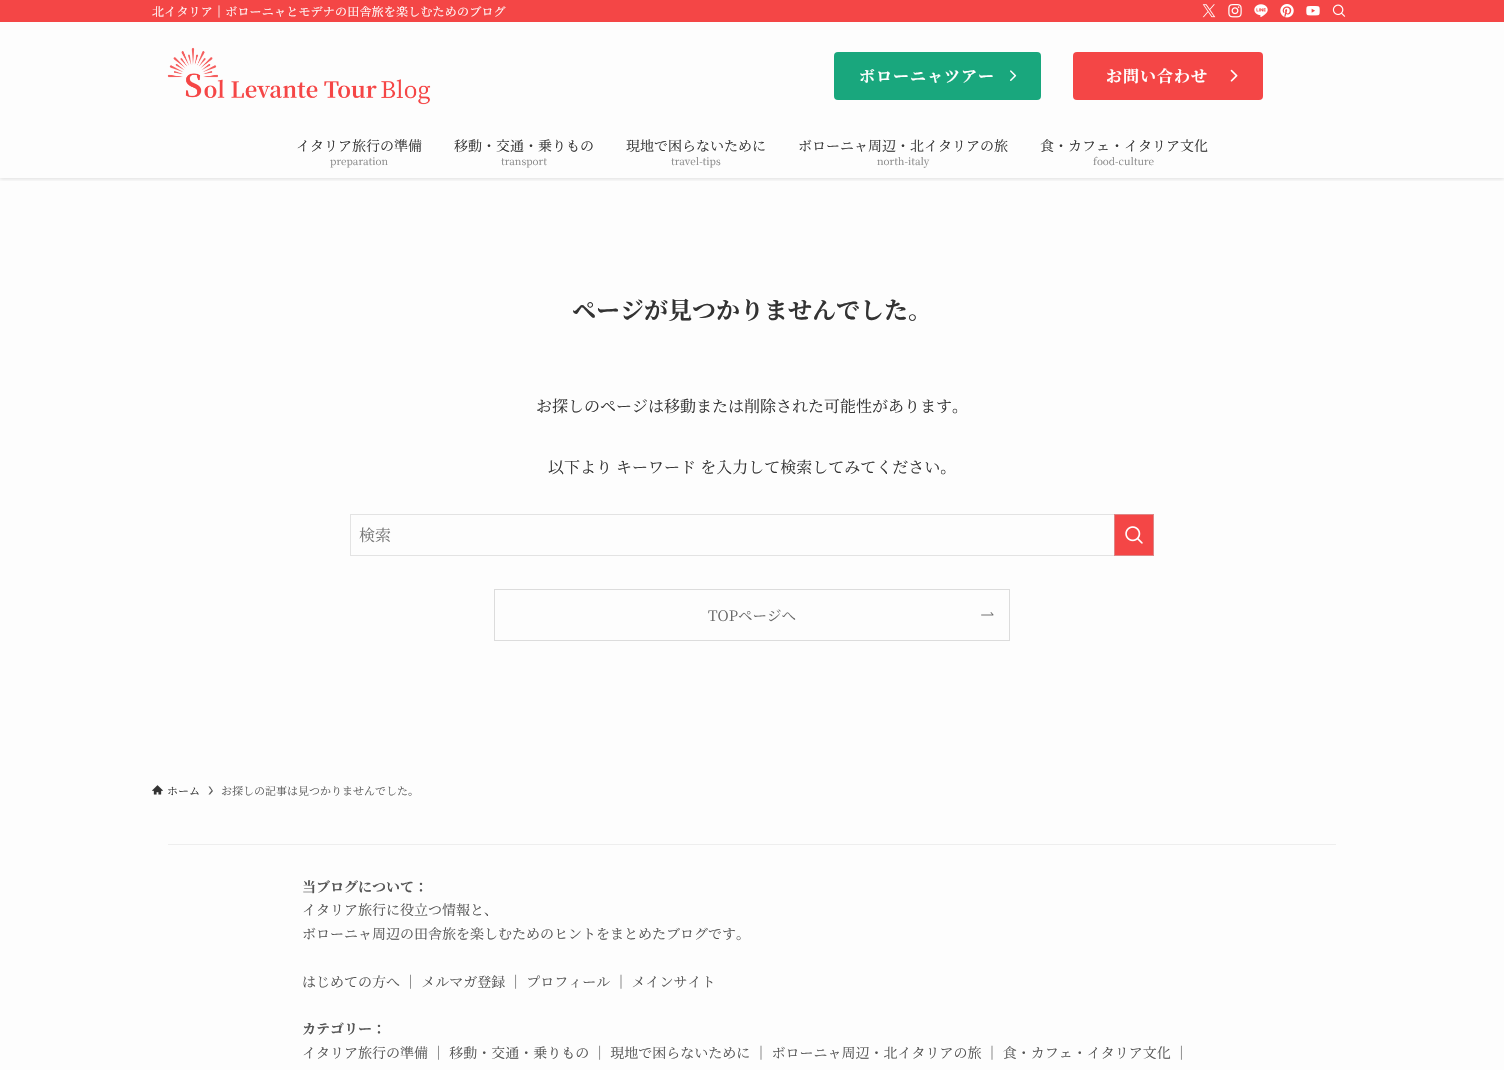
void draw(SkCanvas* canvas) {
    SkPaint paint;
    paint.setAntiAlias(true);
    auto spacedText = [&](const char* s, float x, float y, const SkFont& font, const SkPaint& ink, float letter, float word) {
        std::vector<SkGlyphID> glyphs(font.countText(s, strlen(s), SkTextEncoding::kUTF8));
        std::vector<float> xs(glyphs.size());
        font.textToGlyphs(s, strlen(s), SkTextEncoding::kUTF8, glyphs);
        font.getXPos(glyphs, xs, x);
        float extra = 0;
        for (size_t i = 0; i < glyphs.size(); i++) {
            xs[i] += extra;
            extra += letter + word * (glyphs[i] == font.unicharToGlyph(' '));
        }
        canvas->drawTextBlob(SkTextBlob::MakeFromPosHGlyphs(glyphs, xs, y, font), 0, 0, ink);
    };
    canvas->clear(0xFFFDFDFD);
    canvas->save();
    canvas->clipRect(SkRect::MakeXYWH(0, 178, 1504, 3));
    paint.setColor(0x1F000000);
    paint.setMaskFilter(SkMaskFilter::MakeBlur(kNormal_SkBlurStyle, 2));
    canvas->drawRect(SkRect::MakeXYWH(0, 1, 1504, 178), paint);
    paint.setMaskFilter(nullptr);
    canvas->restore();
    paint.setColor(0xFFF44646);
    canvas->drawRect(SkRect::MakeXYWH(0, 0, 1504, 22), paint);
    SkFont font1(fontMgr->matchFamilyStyle("Noto Serif JP", SkFontStyle::Normal()), 12);
    font1.setSubpixel(true);
    paint.setColor(0xFFFFFFFF);
    spacedText("北イタリア｜ボローニャとモデナの田舎旅を楽しむためのブログ", 152, 16, font1, paint, 0.2f, 0);
    canvas->drawImageRect(SkImages::DeferredFromEncodedData(SkData::MakeFromFileName("img1.png")), SkRect::MakeXYWH(1202, 4, 14, 14), SkSamplingOptions());
    canvas->drawImageRect(SkImages::DeferredFromEncodedData(SkData::MakeFromFileName("img2.png")), SkRect::MakeXYWH(1228, 4, 14, 14), SkSamplingOptions());
    canvas->drawImageRect(SkImages::DeferredFromEncodedData(SkData::MakeFromFileName("img3.png")), SkRect::MakeXYWH(1254, 4, 14, 14), SkSamplingOptions());
    canvas->drawImageRect(SkImages::DeferredFromEncodedData(SkData::MakeFromFileName("img4.png")), SkRect::MakeXYWH(1280, 4, 14, 14), SkSamplingOptions());
    canvas->drawImageRect(SkImages::DeferredFromEncodedData(SkData::MakeFromFileName("img5.png")), SkRect::MakeXYWH(1306, 6, 14, 10), SkSamplingOptions());
    canvas->drawImageRect(SkImages::DeferredFromEncodedData(SkData::MakeFromFileName("img6.png")), SkRect::MakeXYWH(1332, 4, 14, 13), SkSamplingOptions());
    canvas->drawImageRect(SkImages::DeferredFromEncodedData(SkData::MakeFromFileName("img7.png")), SkRect::MakeXYWH(167, 47, 264, 58), SkSamplingOptions());
    paint.setColor(0xFF19A77D);
    canvas->drawRoundRect(SkRect::MakeXYWH(834, 52, 207, 48), 4, 4, paint);
    SkFont font2(fontMgr->matchFamilyStyle("Noto Serif JP", SkFontStyle::Bold()), 16);
    font2.setSubpixel(true);
    paint.setColor(0xFFFFFFFF);
    spacedText("ボローニャツアー", 859, 82, font2, paint, 1, 0);
    canvas->drawImageRect(SkImages::DeferredFromEncodedData(SkData::MakeFromFileName("img8.png")), SkRect::MakeXYWH(1010, 70, 7, 11), SkSamplingOptions());
    paint.setColor(0xFFF44646);
    canvas->drawRoundRect(SkRect::MakeXYWH(1073, 52, 190, 48), 4, 4, paint);
    paint.setColor(0xFFFFFFFF);
    spacedText("お問い合わせ", 1106, 82, font2, paint, 1, 0);
    canvas->drawImageRect(SkImages::DeferredFromEncodedData(SkData::MakeFromFileName("img9.png")), SkRect::MakeXYWH(1230, 69, 8, 13), SkSamplingOptions());
    SkFont font3(fontMgr->matchFamilyStyle("Noto Serif JP", SkFontStyle::Normal()), 14);
    font3.setSubpixel(true);
    paint.setColor(0xFF333333);
    canvas->drawString("イタリア旅行の準備", 296, 151, font3, paint);
    SkFont font4(fontMgr->matchFamilyStyle("Noto Serif JP", SkFontStyle::Normal()), 10);
    font4.setSubpixel(true);
    paint.setColor(0xFF848484);
    canvas->drawString("preparation", 330, 165, font4, paint);
    paint.setColor(0xFF333333);
    canvas->drawString("移動・交通・乗りもの", 454, 151, font3, paint);
    paint.setColor(0xFF848484);
    canvas->drawString("transport", 501, 165, font4, paint);
    paint.setColor(0xFF333333);
    canvas->drawString("現地で困らないために", 626, 151, font3, paint);
    paint.setColor(0xFF848484);
    canvas->drawString("travel-tips", 671, 165, font4, paint);
    paint.setColor(0xFF333333);
    canvas->drawString("ボローニャ周辺・北イタリアの旅", 798, 151, font3, paint);
    paint.setColor(0xFF848484);
    canvas->drawString("north-italy", 877, 165, font4, paint);
    paint.setColor(0xFF333333);
    canvas->drawString("食・カフェ・イタリア文化", 1040, 151, font3, paint);
    paint.setColor(0xFF848484);
    canvas->drawString("food-culture", 1093, 165, font4, paint);
    SkFont font5(fontMgr->matchFamilyStyle("Noto Serif JP", SkFontStyle::Bold()), 24);
    font5.setSubpixel(true);
    paint.setColor(0xFF333333);
    canvas->drawString("ページが見つかりませんでした。", 572, 319, font5, paint);
    SkFont font6(fontMgr->matchFamilyStyle("Noto Serif JP", SkFontStyle::Normal()), 16);
    font6.setSubpixel(true);
    canvas->drawString("お探しのページは移動または削除された可能性があります。", 536, 412, font6, paint);
    canvas->drawString("以下より キーワード を入力して検索してみてください。", 548, 473, font6, paint);
    paint.setStyle(SkPaint::kStroke_Style);
    paint.setStrokeWidth(1);
    paint.setColor(0xFFE3E3E3);
    canvas->drawRect(SkRect::MakeXYWH(350.5f, 514.5f, 803, 41), paint);
    paint.setStyle(SkPaint::kFill_Style);
    paint.setColor(0xFF757575);
    canvas->drawString("検索", 359, 541, font6, paint);
    paint.setColor(0xFFF44646);
    canvas->drawRect(SkRect::MakeXYWH(1114.5f, 514.5f, 39, 41), paint);
    paint.setStyle(SkPaint::kStroke_Style);
    paint.setColor(0xFFDE8787);
    canvas->drawRect(SkRect::MakeXYWH(1114.5f, 514.5f, 39, 41), paint);
    canvas->drawImageRect(SkImages::DeferredFromEncodedData(SkData::MakeFromFileName("img10.png")), SkRect::MakeXYWH(1125, 526, 18, 18), SkSamplingOptions());
    paint.setColor(0xFFDCDCDC);
    canvas->drawRect(SkRect::MakeXYWH(494.5f, 589.5f, 515, 51), paint);
    SkFont font7(fontMgr->matchFamilyStyle("Noto Serif JP", SkFontStyle::Normal()), 14.5f);
    font7.setSubpixel(true);
    paint.setStyle(SkPaint::kFill_Style);
    paint.setColor(0xFF666666);
    canvas->drawString("TOPページへ", 708, 621, font7, paint);
    canvas->drawImageRect(SkImages::DeferredFromEncodedData(SkData::MakeFromFileName("img11.png")), SkRect::MakeXYWH(981, 612, 13, 4), SkSamplingOptions());
    canvas->drawImageRect(SkImages::DeferredFromEncodedData(SkData::MakeFromFileName("img12.png")), SkRect::MakeXYWH(152, 785, 11, 10), SkSamplingOptions());
    SkFont font8(fontMgr->matchFamilyStyle("Noto Serif JP", SkFontStyle::Normal()), 11);
    font8.setSubpixel(true);
    paint.setColor(0xFF333333);
    canvas->drawString("ホーム", 167, 795, font8, paint);
    paint.setColor(0xFF5B5B5B);
    canvas->drawPath(SkPathBuilder().moveTo(210, 786.5f).lineTo(208.5f, 786.5f).lineTo(211.5f, 790.5f).lineTo(208.5f, 794.5f).lineTo(210, 794.5f).lineTo(213, 791).close().detach(), paint);
    canvas->drawString("お探しの記事は見つかりませんでした。", 221, 795, font8, paint);
    paint.setColor(0xFFEEEEEE);
    canvas->drawRect(SkRect::MakeXYWH(168, 844, 1168, 1), paint);
    SkFont font9(fontMgr->matchFamilyStyle("Noto Serif JP", SkFontStyle::Bold()), 14);
    font9.setSubpixel(true);
    paint.setColor(0xFF555555);
    canvas->drawString("当ブログについて：", 302, 892, font9, paint);
    canvas->drawString("イタリア旅行に役立つ情報と、", 302, 915, font3, paint);
    canvas->drawString("ボローニャ周辺の田舎旅を楽しむためのヒントをまとめたブログです。", 302, 939, font3, paint);
    canvas->drawString("はじめての方へ ｜ メルマガ登録 ｜ プロフィール ｜ メインサイト", 302, 987, font3, paint);
    canvas->drawString("カテゴリー：", 302, 1034, font9, paint);
    canvas->drawString("イタリア旅行の準備 ｜ 移動・交通・乗りもの ｜ 現地で困らないために ｜ ボローニャ周辺・北イタリアの旅 ｜ 食・カフェ・イタリア文化 ｜", 302, 1058, font3, paint);
}
